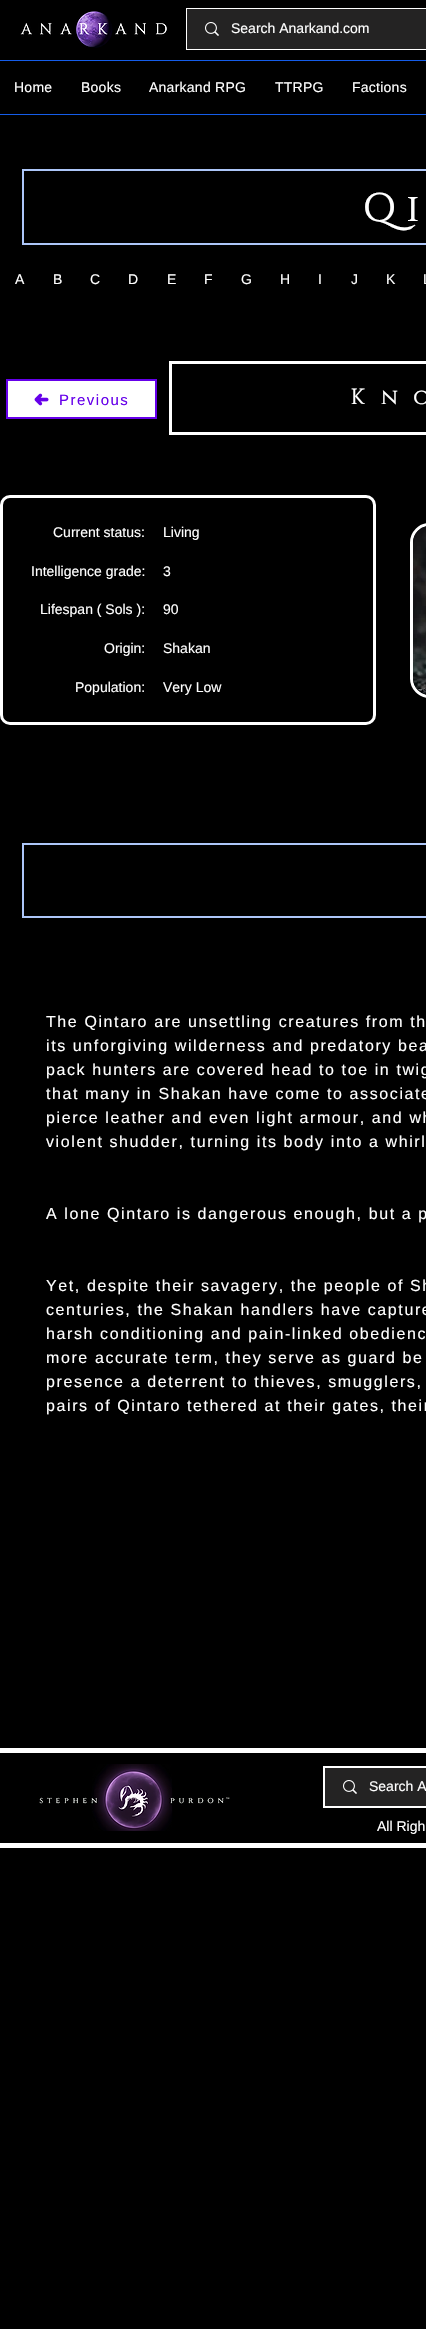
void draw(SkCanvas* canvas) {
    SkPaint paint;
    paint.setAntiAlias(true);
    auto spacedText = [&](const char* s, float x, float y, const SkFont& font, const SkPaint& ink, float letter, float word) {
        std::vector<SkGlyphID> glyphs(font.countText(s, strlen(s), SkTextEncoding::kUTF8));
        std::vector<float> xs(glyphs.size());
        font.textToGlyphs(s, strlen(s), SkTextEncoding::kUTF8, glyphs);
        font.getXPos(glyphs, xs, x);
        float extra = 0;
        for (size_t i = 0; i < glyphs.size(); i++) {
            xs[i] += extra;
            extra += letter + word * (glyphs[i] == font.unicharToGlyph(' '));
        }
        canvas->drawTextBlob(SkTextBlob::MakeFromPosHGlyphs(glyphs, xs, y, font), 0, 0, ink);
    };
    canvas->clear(0xFF000000);
    canvas->drawImageRect(SkImages::DeferredFromEncodedData(SkData::MakeFromFileName("img1.png")), SkRect::MakeXYWH(20, 11, 147, 37), SkSamplingOptions());
    paint.setStyle(SkPaint::kStroke_Style);
    paint.setStrokeWidth(1);
    paint.setColor(0xFFFFFFFF);
    canvas->drawRect(SkRect::MakeXYWH(186.5f, 8.5f, 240, 41), paint);
    paint.setStyle(SkPaint::kFill_Style);
    paint.setColor(0xFF242323);
    canvas->drawRect(SkRect::MakeXYWH(187, 9, 239, 40), paint);
    canvas->drawImageRect(SkImages::DeferredFromEncodedData(SkData::MakeFromFileName("img2.png")), SkRect::MakeXYWH(205, 22, 14, 14), SkSamplingOptions());
    SkFont font1(fontMgr->matchFamilyStyle("Liberation Sans", SkFontStyle::Normal()), 14);
    font1.setSubpixel(true);
    paint.setColor(0xFFFFFFFF);
    canvas->drawString("Search Anarkand.com", 231, 33, font1, paint);
    paint.setColor(0xFF155DE9);
    canvas->drawRect(SkRect::MakeXYWH(0, 60, 426, 1), paint);
    paint.setColor(0xFFFFFFFF);
    spacedText("Home", 14, 92, font1, paint, 0.25f, 0);
    spacedText("Books", 81, 92, font1, paint, 0.25f, 0);
    spacedText("Anarkand RPG", 149, 92, font1, paint, 0.25f, 0);
    spacedText("TTRPG", 275, 92, font1, paint, 0.25f, 0);
    spacedText("Factions", 352, 92, font1, paint, 0.25f, 0);
    paint.setColor(0xFF155DE9);
    canvas->drawRect(SkRect::MakeXYWH(0, 114, 426, 1), paint);
    paint.setStyle(SkPaint::kStroke_Style);
    paint.setStrokeWidth(2);
    paint.setColor(0xFFADC6F8);
    canvas->drawRect(SkRect::MakeXYWH(23, 170, 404, 74), paint);
    SkFont font2(fontMgr->matchFamilyStyle("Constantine", SkFontStyle::Normal()), 40);
    font2.setSubpixel(true);
    paint.setStyle(SkPaint::kFill_Style);
    paint.setColor(0xFFFFFFFF);
    spacedText("Qi", 363, 221, font2, paint, 10, 0);
    spacedText("A", 15, 284, font1, paint, 0.25f, 0);
    spacedText("B", 53, 284, font1, paint, 0.25f, 0);
    spacedText("C", 90, 284, font1, paint, 0.25f, 0);
    spacedText("D", 128, 284, font1, paint, 0.25f, 0);
    spacedText("E", 167, 284, font1, paint, 0.25f, 0);
    spacedText("F", 204, 284, font1, paint, 0.25f, 0);
    spacedText("G", 241, 284, font1, paint, 0.25f, 0);
    spacedText("H", 280, 284, font1, paint, 0.25f, 0);
    spacedText("I", 318, 284, font1, paint, 0.25f, 0);
    spacedText("J", 351, 284, font1, paint, 0.25f, 0);
    spacedText("K", 386, 284, font1, paint, 0.25f, 0);
    spacedText("L", 423, 284, font1, paint, 0.25f, 0);
    canvas->drawRect(SkRect::MakeXYWH(7, 380, 149, 38), paint);
    paint.setStyle(SkPaint::kStroke_Style);
    paint.setColor(0xFF6600EA);
    canvas->drawRect(SkRect::MakeXYWH(7, 380, 149, 38), paint);
    canvas->drawImageRect(SkImages::DeferredFromEncodedData(SkData::MakeFromFileName("img3.png")), SkRect::MakeXYWH(34, 393, 15, 13), SkSamplingOptions());
    SkFont font3(fontMgr->matchFamilyStyle("Liberation Sans", SkFontStyle::Normal()), 15);
    font3.setSubpixel(true);
    paint.setStyle(SkPaint::kFill_Style);
    spacedText("Previous", 59, 405, font3, paint, 1.5f, 0);
    paint.setStyle(SkPaint::kStroke_Style);
    paint.setStrokeWidth(3);
    paint.setColor(0xFFFFFFFF);
    canvas->drawRect(SkRect::MakeXYWH(170.5f, 362.5f, 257, 71), paint);
    SkFont font4(fontMgr->matchFamilyStyle("Constantine", SkFontStyle::Normal()), 22);
    font4.setSubpixel(true);
    paint.setStyle(SkPaint::kFill_Style);
    spacedText("Kno", 351, 404, font4, paint, 15.5f, 0);
    paint.setStyle(SkPaint::kStroke_Style);
    canvas->drawRoundRect(SkRect::MakeXYWH(1.5f, 496.5f, 373, 227), 8.5f, 8.5f, paint);
    paint.setStyle(SkPaint::kFill_Style);
    canvas->drawString("Current status:", 53, 537, font1, paint);
    canvas->drawString("Living", 163, 537, font1, paint);
    canvas->drawString("Intelligence grade:", 31, 576, font1, paint);
    canvas->drawString("3", 163, 576, font1, paint);
    canvas->drawString("Lifespan ( Sols ):", 40, 614, font1, paint);
    canvas->drawString("90", 163, 614, font1, paint);
    canvas->drawString("Origin:", 104, 653, font1, paint);
    canvas->drawString("Shakan", 163, 653, font1, paint);
    canvas->drawString("Population:", 75, 692, font1, paint);
    canvas->drawString("Very Low", 163, 692, font1, paint);
    paint.setStyle(SkPaint::kStroke_Style);
    canvas->drawRoundRect(SkRect::MakeXYWH(411.5f, 524.5f, 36, 172), 18.5f, 18.5f, paint);
    canvas->drawImageRect(SkImages::DeferredFromEncodedData(SkData::MakeFromFileName("img4.png")), SkRect::MakeXYWH(413, 526, 13, 169), SkSamplingOptions());
    paint.setStrokeWidth(2);
    paint.setColor(0xFFADC6F8);
    canvas->drawRect(SkRect::MakeXYWH(23, 844, 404, 73), paint);
    SkFont font5(fontMgr->matchFamilyStyle("Liberation Sans", SkFontStyle::Normal()), 16);
    font5.setSubpixel(true);
    paint.setStyle(SkPaint::kFill_Style);
    paint.setColor(0xFFFFFFFF);
    spacedText("The Qintaro are unsettling creatures from th", 46, 1027, font5, paint, 1.6f, 0);
    spacedText("its unforgiving wilderness and predatory bea", 46, 1051, font5, paint, 1.6f, 0);
    spacedText("pack hunters are covered head to toe in twig", 46, 1075, font5, paint, 1.6f, 0);
    spacedText("that many in Shakan have come to associate", 46, 1099, font5, paint, 1.6f, 0);
    spacedText("pierce leather and even light armour, and wh", 46, 1123, font5, paint, 1.6f, 0);
    spacedText("violent shudder, turning its body into a whirl", 46, 1147, font5, paint, 1.6f, 0);
    spacedText("A lone Qintaro is dangerous enough, but a p", 46, 1219, font5, paint, 1.6f, 0);
    spacedText("Yet, despite their savagery, the people of Sh", 46, 1291, font5, paint, 1.6f, 0);
    spacedText("centuries, the Shakan handlers have capture", 46, 1315, font5, paint, 1.6f, 0);
    spacedText("harsh conditioning and pain-linked obedienc", 46, 1339, font5, paint, 1.6f, 0);
    spacedText("more accurate term, they serve as guard be", 46, 1363, font5, paint, 1.6f, 0);
    spacedText("presence a deterrent to thieves, smugglers,", 46, 1387, font5, paint, 1.6f, 0);
    spacedText("pairs of Qintaro tethered at their gates, their", 46, 1411, font5, paint, 1.6f, 0);
    canvas->drawRect(SkRect::MakeXYWH(0, 1748, 426, 5), paint);
    canvas->drawRect(SkRect::MakeXYWH(0, 1843, 426, 5), paint);
    canvas->drawImageRect(SkImages::DeferredFromEncodedData(SkData::MakeFromFileName("img5.png")), SkRect::MakeXYWH(39, 1764, 191, 67), SkSamplingOptions());
    paint.setStyle(SkPaint::kStroke_Style);
    canvas->drawRect(SkRect::MakeXYWH(324, 1767, 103, 40), paint);
    paint.setStyle(SkPaint::kFill_Style);
    paint.setColor(0xFF242323);
    canvas->drawRect(SkRect::MakeXYWH(325, 1768, 101, 38), paint);
    canvas->drawImageRect(SkImages::DeferredFromEncodedData(SkData::MakeFromFileName("img2.png")), SkRect::MakeXYWH(343, 1780, 14, 14), SkSamplingOptions());
    paint.setColor(0xFFFFFFFF);
    canvas->drawString("Search A", 369, 1791, font1, paint);
    canvas->drawString("All Righ", 377, 1831, font1, paint);
}
